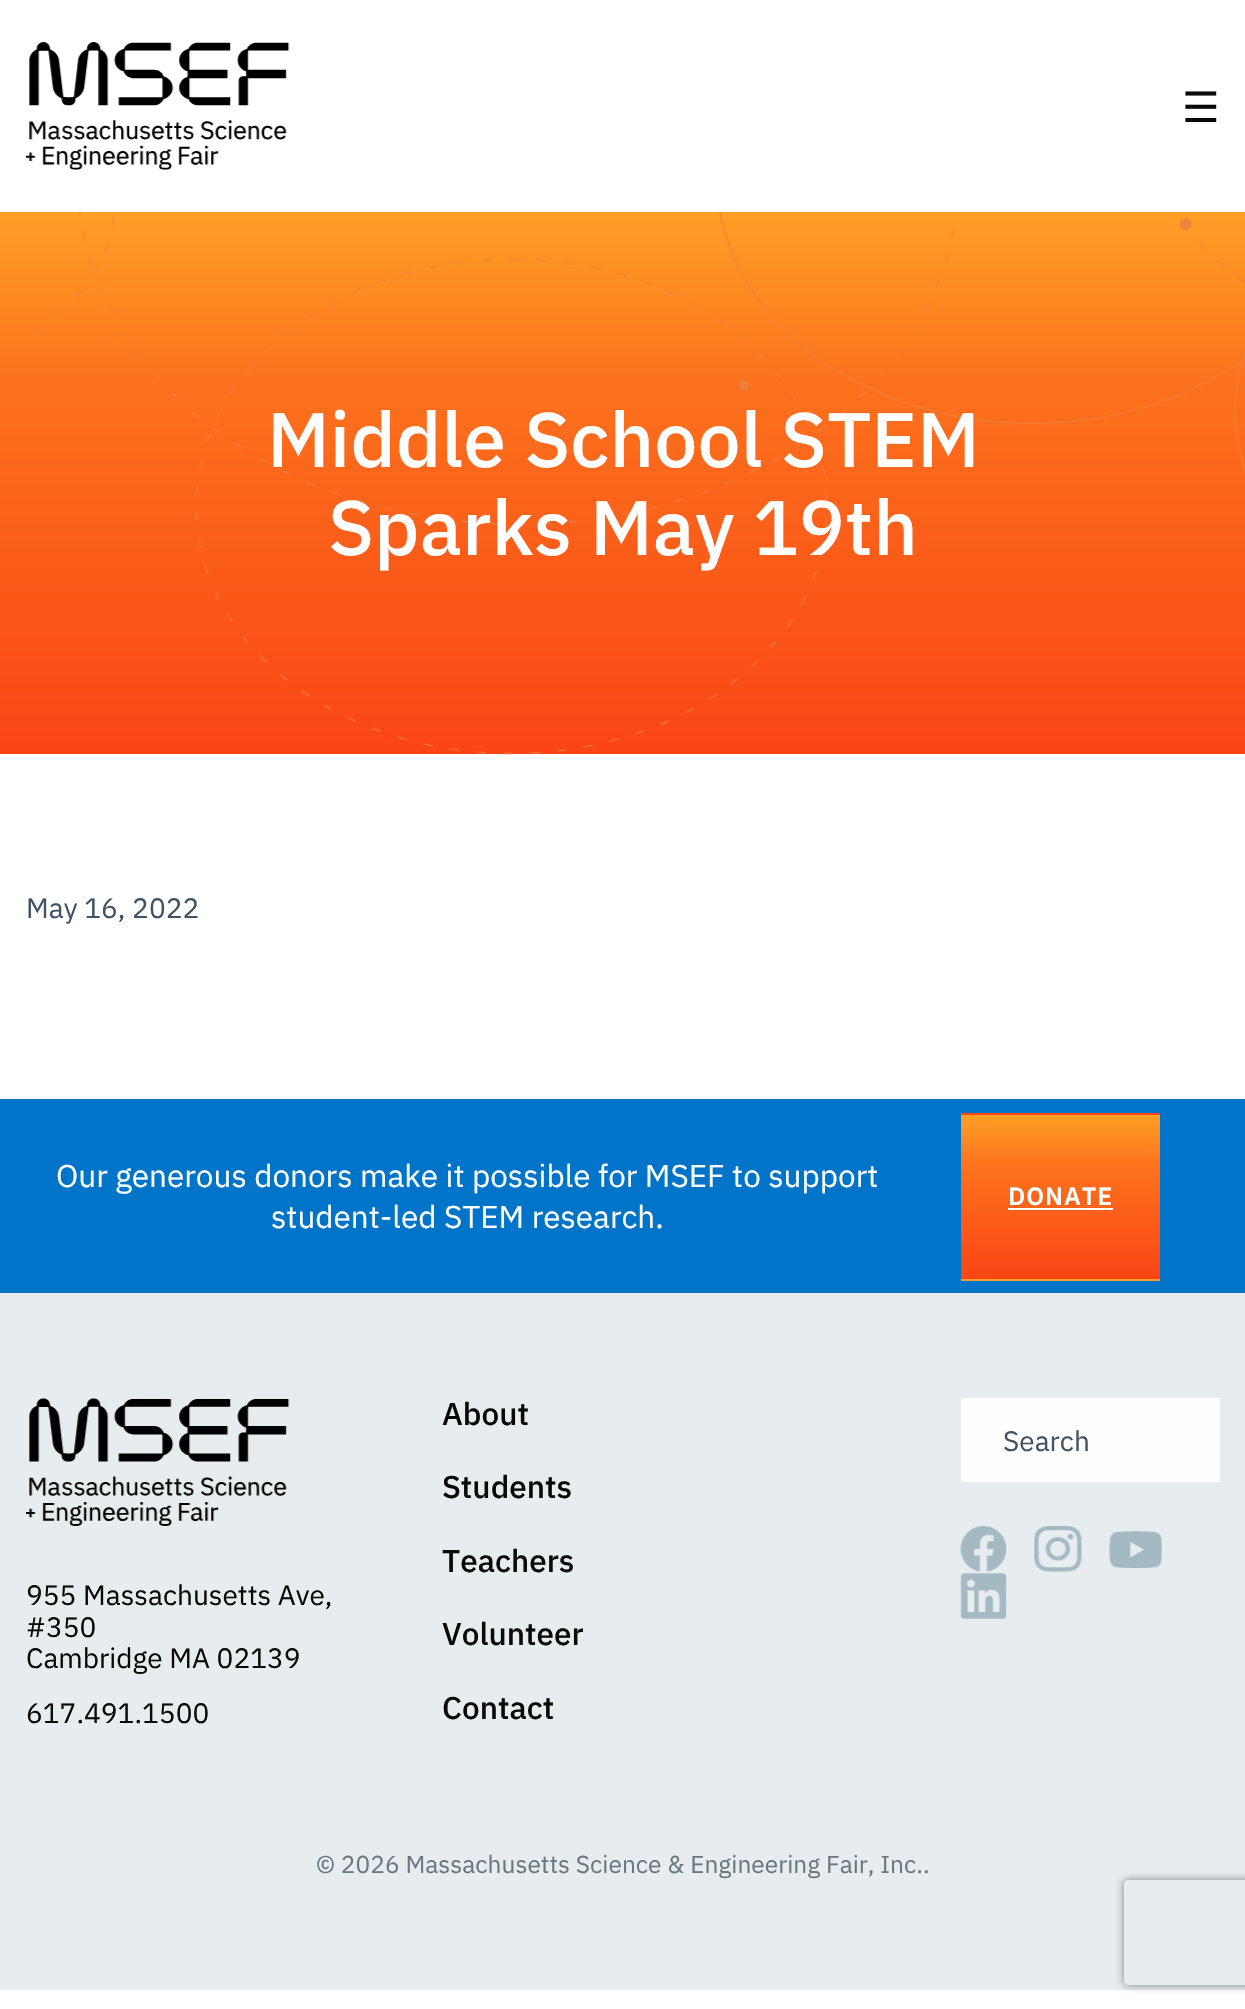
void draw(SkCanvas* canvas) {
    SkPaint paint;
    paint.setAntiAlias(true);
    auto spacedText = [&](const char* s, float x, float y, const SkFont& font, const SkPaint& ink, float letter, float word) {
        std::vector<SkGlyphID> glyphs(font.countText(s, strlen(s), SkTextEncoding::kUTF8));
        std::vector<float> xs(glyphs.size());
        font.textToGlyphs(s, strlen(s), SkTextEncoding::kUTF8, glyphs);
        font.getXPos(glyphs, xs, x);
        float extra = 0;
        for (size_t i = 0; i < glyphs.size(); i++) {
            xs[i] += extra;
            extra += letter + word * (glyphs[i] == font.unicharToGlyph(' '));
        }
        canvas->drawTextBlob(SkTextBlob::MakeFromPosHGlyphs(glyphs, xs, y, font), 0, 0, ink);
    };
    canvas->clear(0xFFFFFFFF);
    canvas->drawImageRect(SkImages::DeferredFromEncodedData(SkData::MakeFromFileName("img1.png")), SkRect::MakeXYWH(26, 42, 264, 128), SkSamplingOptions());
    SkFont font1(fontMgr->matchFamilyStyle("DejaVu Sans", SkFontStyle::Normal()), 42);
    font1.setSubpixel(true);
    paint.setColor(0xFF0A0A0A);
    canvas->drawString("☰", 1182, 122, font1, paint);
    {
        const SkColor colors[] = {0xFFFA4515, 0xFFFC721D, 0xFFFE9F26};
        const float stops[] = {0, 0.69f, 1};
        const SkPoint ends[] = {{623, 754}, {623, 212}};
        paint.setShader(SkGradientShader::MakeLinear(ends, colors, stops, 3, SkTileMode::kClamp));
        paint.setAlpha(255);
    }
    canvas->drawRect(SkRect::MakeXYWH(0, 212, 1245, 542), paint);
    canvas->drawImageRect(SkImages::DeferredFromEncodedData(SkData::MakeFromFileName("img2.png")), SkRect::MakeXYWH(15, 212, 1230, 543), SkSamplingOptions());
    SkFont font2(fontMgr->matchFamilyStyle("IBM Plex Sans", SkFontStyle(500, SkFontStyle::kNormal_Width, SkFontStyle::kUpright_Slant)), 77);
    font2.setSubpixel(true);
    paint.setShader(nullptr);
    paint.setColor(0xFFFEFEFE);
    canvas->drawString("Middle School STEM", 267, 467, font2, paint);
    canvas->drawString("Sparks May 19th", 328, 555, font2, paint);
    SkFont font3(fontMgr->matchFamilyStyle("IBM Plex Sans", SkFontStyle::Normal()), 28);
    font3.setSubpixel(true);
    paint.setColor(0xFF3F5364);
    canvas->drawString("May 16, 2022", 26, 918, font3, paint);
    paint.setColor(0xFF0074C8);
    canvas->drawRect(SkRect::MakeXYWH(0, 1099, 1245, 194), paint);
    SkFont font4(fontMgr->matchFamilyStyle("IBM Plex Sans", SkFontStyle::Normal()), 31.5f);
    font4.setSubpixel(true);
    paint.setColor(0xFFFEFEFE);
    canvas->drawString("Our generous donors make it possible for MSEF to support", 56, 1187, font4, paint);
    canvas->drawString("student-led STEM research.", 271, 1228, font4, paint);
    {
        const SkColor colors[] = {0xFFFA4515, 0xFFFC721D, 0xFFFE9F26};
        const float stops[] = {0, 0.69f, 1};
        const SkPoint ends[] = {{1061, 1115}, {1061, 950}};
        paint.setShader(SkGradientShader::MakeLinear(ends, colors, stops, 3, SkTileMode::kClamp));
        paint.setAlpha(255);
    }
    canvas->drawRect(SkRect::MakeXYWH(961, 1113, 199, 2), paint);
    {
        const SkColor colors[] = {0xFFFA4515, 0xFFFC721D, 0xFFFE9F26};
        const float stops[] = {0, 0.69f, 1};
        const SkPoint ends[] = {{1061, 1279}, {1061, 1115}};
        paint.setShader(SkGradientShader::MakeLinear(ends, colors, stops, 3, SkTileMode::kClamp));
        paint.setAlpha(255);
    }
    canvas->drawRect(SkRect::MakeXYWH(961, 1115, 199, 164), paint);
    {
        const SkColor colors[] = {0xFFFA4515, 0xFFFC721D, 0xFFFE9F26};
        const float stops[] = {0, 0.69f, 1};
        const SkPoint ends[] = {{1061, 1444}, {1061, 1279}};
        paint.setShader(SkGradientShader::MakeLinear(ends, colors, stops, 3, SkTileMode::kClamp));
        paint.setAlpha(255);
    }
    canvas->drawRect(SkRect::MakeXYWH(961, 1279, 199, 2), paint);
    SkFont font5(fontMgr->matchFamilyStyle("IBM Plex Sans", SkFontStyle(600, SkFontStyle::kNormal_Width, SkFontStyle::kUpright_Slant)), 25);
    font5.setSubpixel(true);
    paint.setShader(nullptr);
    paint.setColor(0xFFFEFEFE);
    spacedText("DONATE", 1008, 1205, font5, paint, 1, 0);
    canvas->drawRect(SkRect::MakeXYWH(1008, 1208, 105, 2), paint);
    paint.setColor(0xFFE7ECEE);
    canvas->drawRect(SkRect::MakeXYWH(0, 1293, 1245, 697), paint);
    SkFont font6(fontMgr->matchFamilyStyle("IBM Plex Sans", SkFontStyle(500, SkFontStyle::kNormal_Width, SkFontStyle::kUpright_Slant)), 31.5f);
    font6.setSubpixel(true);
    paint.setColor(0xFF0A0A0A);
    canvas->drawString("About", 442, 1425, font6, paint);
    canvas->drawString("Students", 442, 1498, font6, paint);
    canvas->drawString("Teachers", 442, 1572, font6, paint);
    canvas->drawString("Volunteer", 442, 1645, font6, paint);
    canvas->drawString("Contact", 442, 1719, font6, paint);
    paint.setColor(0xFFFEFEFE);
    canvas->drawRect(SkRect::MakeXYWH(961, 1398, 259, 84), paint);
    paint.setColor(0xFF3F5364);
    canvas->drawString("Search", 1003, 1451, font3, paint);
    canvas->drawImageRect(SkImages::DeferredFromEncodedData(SkData::MakeFromFileName("img3.png")), SkRect::MakeXYWH(960, 1526, 47, 46), SkSamplingOptions());
    canvas->drawImageRect(SkImages::DeferredFromEncodedData(SkData::MakeFromFileName("img4.png")), SkRect::MakeXYWH(1034, 1526, 49, 46), SkSamplingOptions());
    canvas->drawImageRect(SkImages::DeferredFromEncodedData(SkData::MakeFromFileName("img5.png")), SkRect::MakeXYWH(1109, 1531, 53, 37), SkSamplingOptions());
    canvas->drawImageRect(SkImages::DeferredFromEncodedData(SkData::MakeFromFileName("img6.png")), SkRect::MakeXYWH(960, 1573, 47, 46), SkSamplingOptions());
    canvas->drawImageRect(SkImages::DeferredFromEncodedData(SkData::MakeFromFileName("img7.png")), SkRect::MakeXYWH(26, 1398, 264, 128), SkSamplingOptions());
    paint.setColor(0xFF0A0A0A);
    canvas->drawString("955 Massachusetts Ave,", 26, 1605, font3, paint);
    canvas->drawString("#350", 26, 1637, font3, paint);
    canvas->drawString("Cambridge MA 02139", 26, 1668, font3, paint);
    canvas->drawString("617.491.1500", 26, 1723, font3, paint);
    SkFont font7(fontMgr->matchFamilyStyle("IBM Plex Sans", SkFontStyle::Normal()), 24.5f);
    font7.setSubpixel(true);
    paint.setColor(0xFF6B7780);
    canvas->drawString("© 2026 Massachusetts Science & Engineering Fair, Inc..", 316, 1873, font7, paint);
    canvas->save();
    canvas->clipPath(SkPathBuilder(SkPathFillType::kEvenOdd).moveTo(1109, 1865).lineTo(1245, 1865).lineTo(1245, 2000).lineTo(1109, 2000).close().moveTo(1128, 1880).lineTo(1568, 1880).cubicTo(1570, 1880, 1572, 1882, 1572, 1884).lineTo(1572, 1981).cubicTo(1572, 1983, 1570, 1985, 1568, 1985).lineTo(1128, 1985).cubicTo(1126, 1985, 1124, 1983, 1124, 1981).lineTo(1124, 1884).cubicTo(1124, 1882, 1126, 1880, 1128, 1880).close().detach(), true);
    paint.setColor(0xFF808080);
    paint.setMaskFilter(SkMaskFilter::MakeBlur(kNormal_SkBlurStyle, 4.5f));
    canvas->drawRoundRect(SkRect::MakeXYWH(1124, 1880, 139, 105), 4, 4, paint);
    paint.setMaskFilter(nullptr);
    canvas->restore();
}
